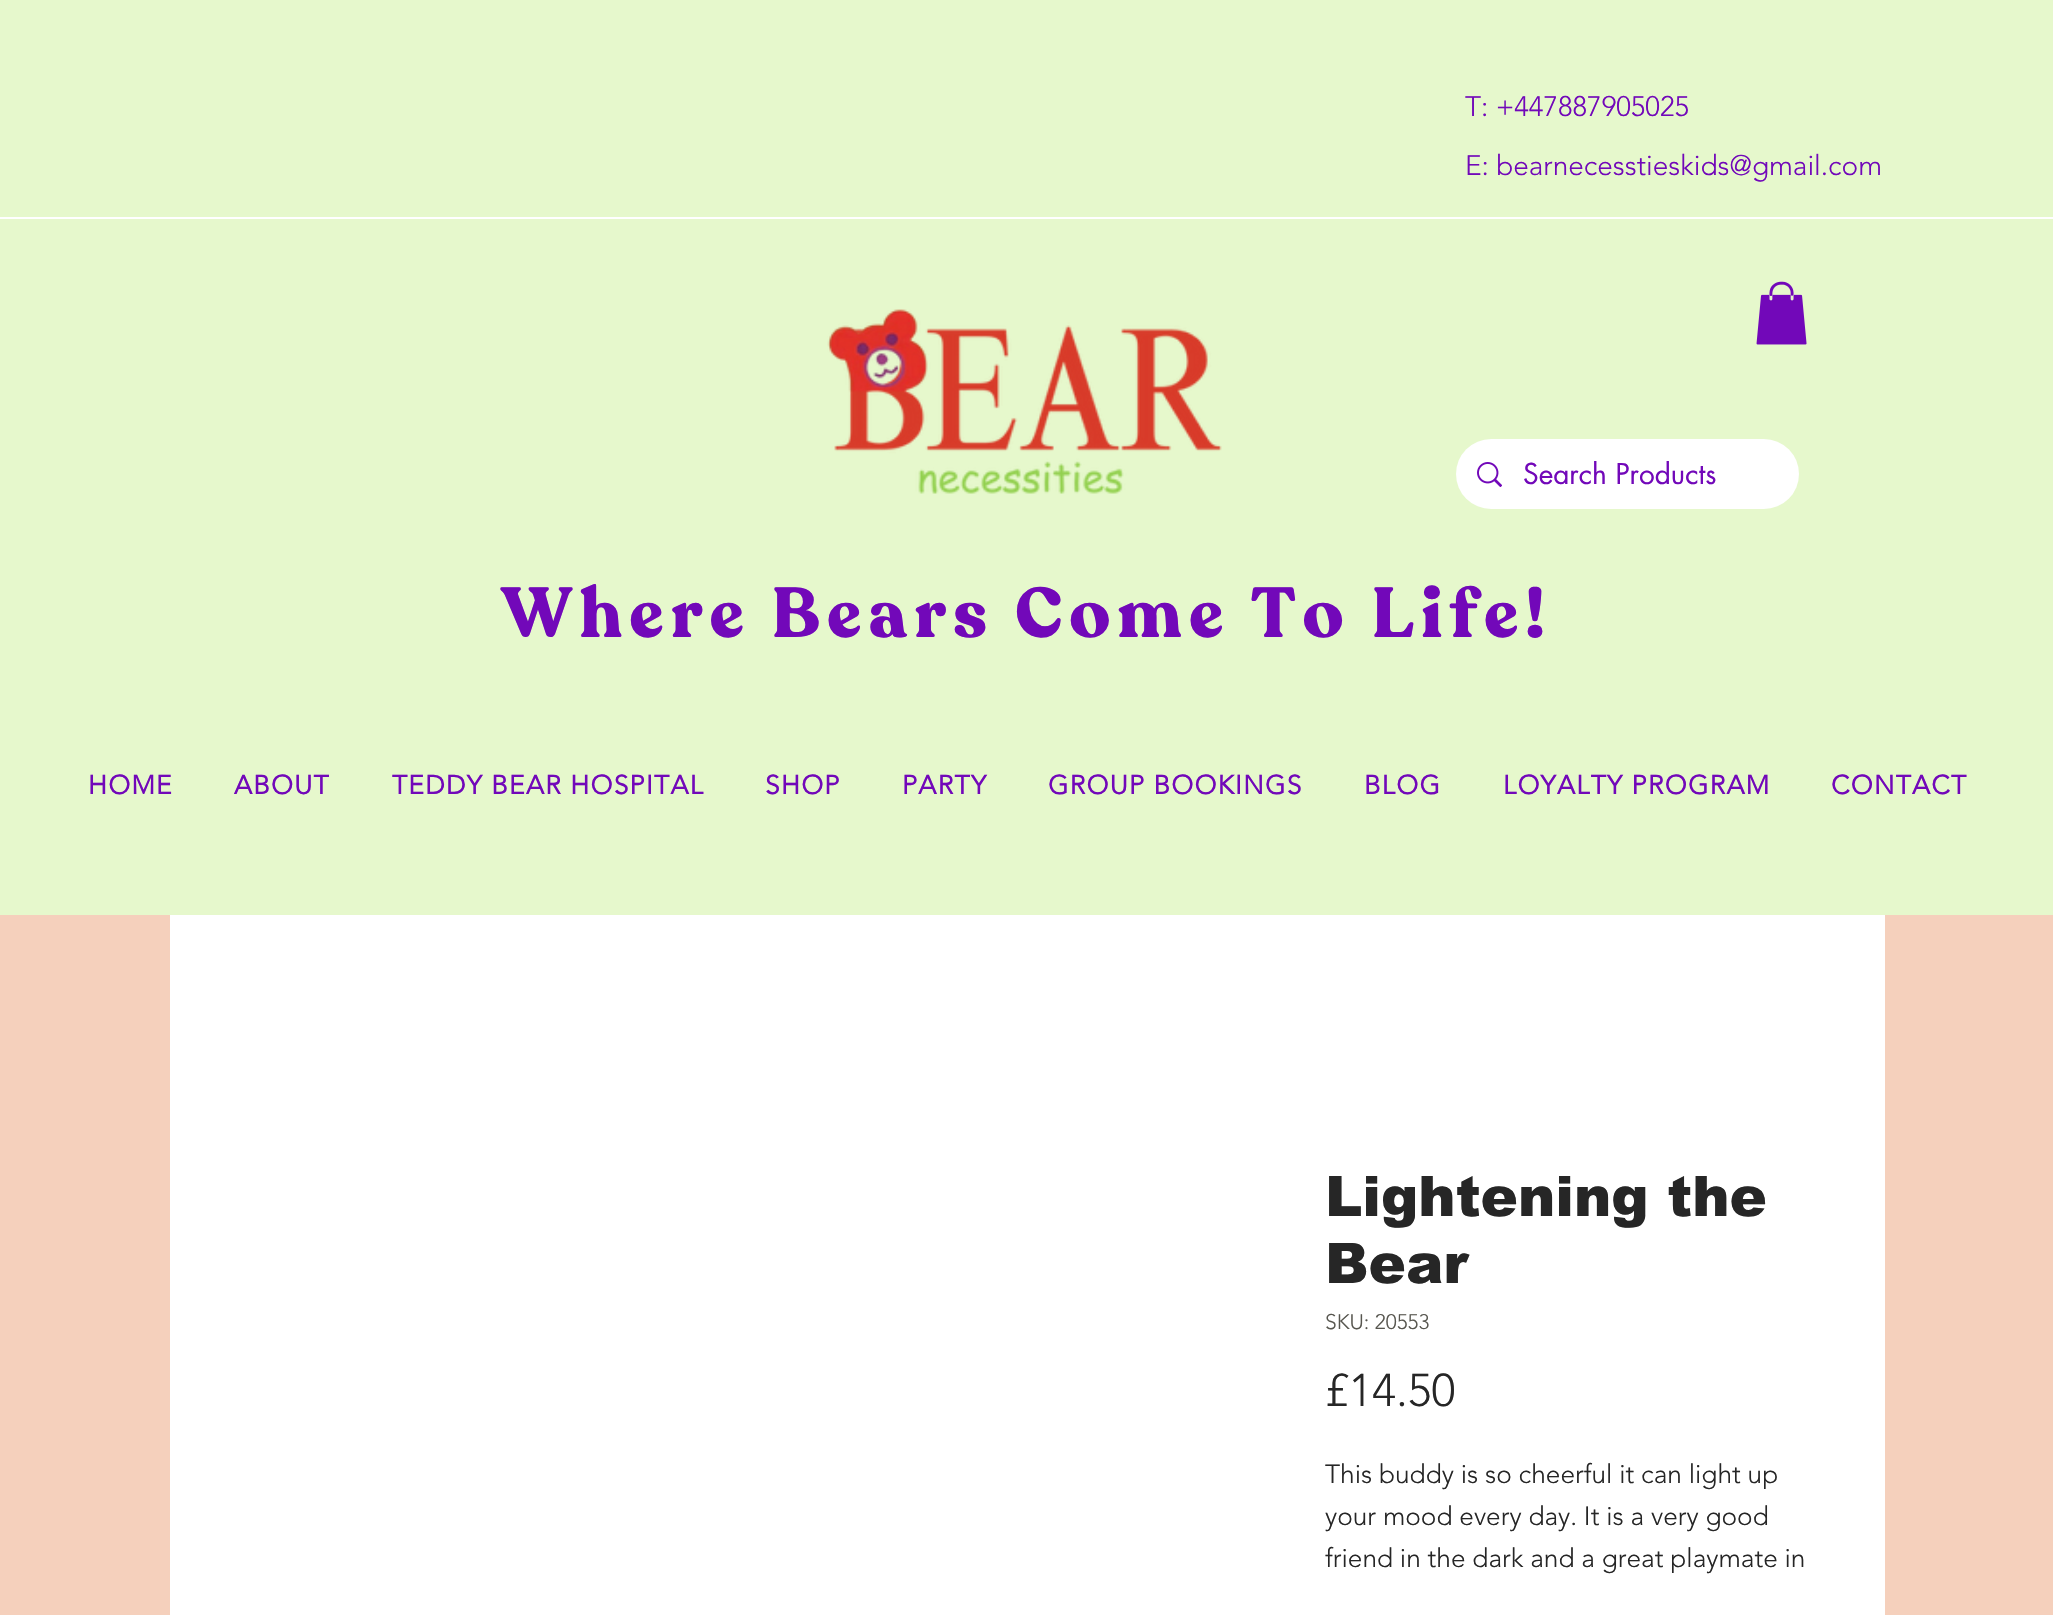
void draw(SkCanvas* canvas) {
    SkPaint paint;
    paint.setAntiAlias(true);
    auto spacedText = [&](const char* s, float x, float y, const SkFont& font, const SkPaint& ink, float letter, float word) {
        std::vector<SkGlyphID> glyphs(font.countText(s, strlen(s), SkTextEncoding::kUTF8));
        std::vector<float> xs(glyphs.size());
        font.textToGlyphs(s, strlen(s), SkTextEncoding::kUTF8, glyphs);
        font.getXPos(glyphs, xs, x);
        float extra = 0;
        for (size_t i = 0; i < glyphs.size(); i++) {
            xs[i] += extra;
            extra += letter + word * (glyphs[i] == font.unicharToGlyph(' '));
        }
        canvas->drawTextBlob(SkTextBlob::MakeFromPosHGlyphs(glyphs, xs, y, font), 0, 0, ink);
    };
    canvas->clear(0xFFF5D0BC);
    paint.setColor(0xFFE6F8CC);
    canvas->drawRect(SkRect::MakeXYWH(0, 0, 2053, 915), paint);
    SkFont font1(fontMgr->matchFamilyStyle("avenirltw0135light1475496", SkFontStyle(300, SkFontStyle::kNormal_Width, SkFontStyle::kUpright_Slant)), 28);
    font1.setSubpixel(true);
    paint.setColor(0xFF7208B9);
    canvas->drawString("T: +447887905025", 1465, 116, font1, paint);
    canvas->drawString("E: bearnecesstieskids@gmail.com", 1465, 175, font1, paint);
    paint.setColor(0xFFFFFFFF);
    canvas->drawRect(SkRect::MakeXYWH(0, 217, 2053, 2), paint);
    canvas->drawImageRect(SkImages::DeferredFromEncodedData(SkData::MakeFromFileName("img1.png")), SkRect::MakeXYWH(827, 309, 395, 185), SkSamplingOptions());
    canvas->drawRoundRect(SkRect::MakeXYWH(1456, 439, 343, 70), 35, 35, paint);
    canvas->drawImageRect(SkImages::DeferredFromEncodedData(SkData::MakeFromFileName("img2.png")), SkRect::MakeXYWH(1477, 462, 25, 25), SkSamplingOptions());
    SkFont font2(fontMgr->matchFamilyStyle("futura", SkFontStyle::Normal()), 28);
    font2.setSubpixel(true);
    paint.setColor(0xFF7208B9);
    canvas->drawString("Search Products", 1523, 484, font2, paint);
    canvas->drawImageRect(SkImages::DeferredFromEncodedData(SkData::MakeFromFileName("img3.png")), SkRect::MakeXYWH(1756, 281, 51, 64), SkSamplingOptions());
    SkFont font3(fontMgr->matchFamilyStyle("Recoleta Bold", SkFontStyle::Bold()), 70);
    font3.setSubpixel(true);
    spacedText("Where Bears Come To Life!", 502, 637, font3, paint, 7, 0);
    SkFont font4(fontMgr->matchFamilyStyle("avenirltw0135light1475496", SkFontStyle::Bold()), 26.25f);
    font4.setSubpixel(true);
    spacedText("HOME", 88, 794, font4, paint, 1.3f, 0);
    spacedText("ABOUT", 234, 794, font4, paint, 1.3f, 0);
    spacedText("TEDDY BEAR HOSPITAL", 392, 794, font4, paint, 1.3f, 0);
    spacedText("SHOP", 765, 794, font4, paint, 1.3f, 0);
    spacedText("PARTY", 902, 794, font4, paint, 1.3f, 0);
    spacedText("GROUP BOOKINGS", 1048, 794, font4, paint, 1.3f, 0);
    spacedText("BLOG", 1364, 794, font4, paint, 1.3f, 0);
    spacedText("LOYALTY PROGRAM", 1503, 794, font4, paint, 1.3f, 0);
    spacedText("CONTACT", 1831, 794, font4, paint, 1.3f, 0);
    paint.setColor(0xFFFFFFFF);
    canvas->drawRect(SkRect::MakeXYWH(170, 915, 1715, 700), paint);
    SkFont font5(fontMgr->matchFamilyStyle("arial", SkFontStyle(900, SkFontStyle::kNormal_Width, SkFontStyle::kUpright_Slant)), 56);
    font5.setSubpixel(true);
    paint.setColor(0xFF262626);
    canvas->drawString("Lightening the", 1325, 1216, font5, paint);
    canvas->drawString("Bear", 1325, 1283, font5, paint);
    SkFont font6(fontMgr->matchFamilyStyle("avenirltw0135light1475496", SkFontStyle(300, SkFontStyle::kNormal_Width, SkFontStyle::kUpright_Slant)), 21);
    font6.setSubpixel(true);
    paint.setColor(0xFF57564F);
    canvas->drawString("SKU: 20553", 1325, 1329, font6, paint);
    SkFont font7(fontMgr->matchFamilyStyle("avenirltw0135light1475496", SkFontStyle(300, SkFontStyle::kNormal_Width, SkFontStyle::kUpright_Slant)), 45.5f);
    font7.setSubpixel(true);
    paint.setColor(0xFF262626);
    canvas->drawString("£14.50", 1325, 1406, font7, paint);
    SkFont font8(fontMgr->matchFamilyStyle("avenirltw0135light1475496", SkFontStyle(300, SkFontStyle::kNormal_Width, SkFontStyle::kUpright_Slant)), 26.25f);
    font8.setSubpixel(true);
    canvas->drawString("This buddy is so cheerful it can light up", 1325, 1483, font8, paint);
    canvas->drawString("your mood every day. It is a very good", 1325, 1525, font8, paint);
    canvas->drawString("friend in the dark and a great playmate in", 1325, 1567, font8, paint);
}
